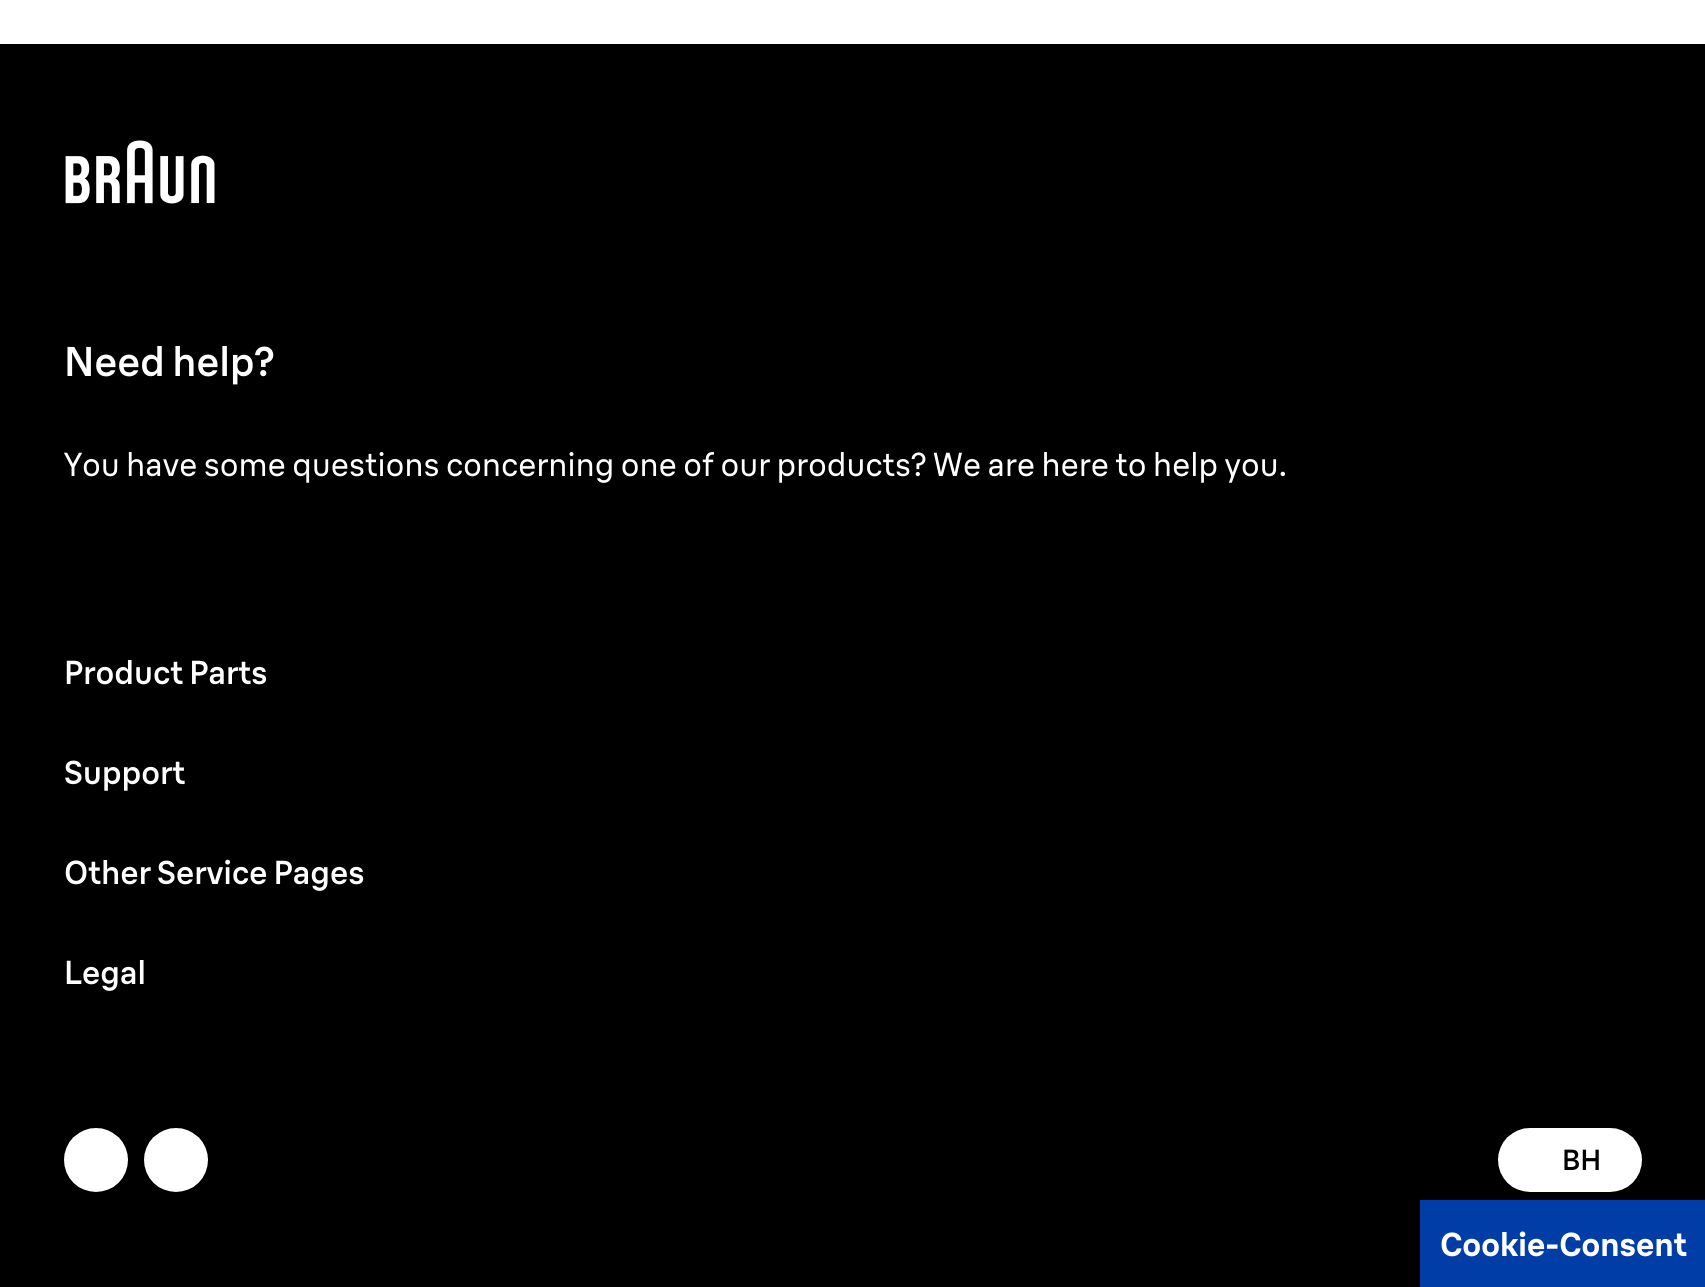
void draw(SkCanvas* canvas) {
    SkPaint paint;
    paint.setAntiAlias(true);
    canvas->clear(0xFFFFFFFF);
    paint.setColor(0xFF000000);
    canvas->drawRect(SkRect::MakeXYWH(0, 44, 1705, 1243), paint);
    canvas->drawImageRect(SkImages::DeferredFromEncodedData(SkData::MakeFromFileName("img1.png")), SkRect::MakeXYWH(65, 140, 150, 64), SkSamplingOptions());
    canvas->drawImageRect(SkImages::DeferredFromEncodedData(SkData::MakeFromFileName("img2.png")), SkRect::MakeXYWH(67, 346, 207, 39), SkSamplingOptions());
    canvas->drawImageRect(SkImages::DeferredFromEncodedData(SkData::MakeFromFileName("img3.png")), SkRect::MakeXYWH(63, 452, 1222, 31), SkSamplingOptions());
    canvas->drawImageRect(SkImages::DeferredFromEncodedData(SkData::MakeFromFileName("img4.png")), SkRect::MakeXYWH(66, 660, 201, 25), SkSamplingOptions());
    canvas->drawImageRect(SkImages::DeferredFromEncodedData(SkData::MakeFromFileName("img5.png")), SkRect::MakeXYWH(65, 760, 120, 31), SkSamplingOptions());
    canvas->drawImageRect(SkImages::DeferredFromEncodedData(SkData::MakeFromFileName("img6.png")), SkRect::MakeXYWH(65, 859, 299, 32), SkSamplingOptions());
    canvas->drawImageRect(SkImages::DeferredFromEncodedData(SkData::MakeFromFileName("img7.png")), SkRect::MakeXYWH(66, 960, 78, 31), SkSamplingOptions());
    paint.setColor(0xFFFFFFFF);
    canvas->drawCircle(96, 1160, 32, paint);
    canvas->drawCircle(176, 1160, 32, paint);
    canvas->drawRoundRect(SkRect::MakeXYWH(1498, 1128, 144, 64), 32, 32, paint);
    canvas->drawImageRect(SkImages::DeferredFromEncodedData(SkData::MakeFromFileName("img8.png")), SkRect::MakeXYWH(1564, 1149, 35, 21), SkSamplingOptions());
    paint.setColor(0xFF003DA7);
    canvas->drawRect(SkRect::MakeXYWH(1420, 1200, 285, 87), paint);
    canvas->drawImageRect(SkImages::DeferredFromEncodedData(SkData::MakeFromFileName("img9.png")), SkRect::MakeXYWH(1441, 1231, 246, 26), SkSamplingOptions());
}
